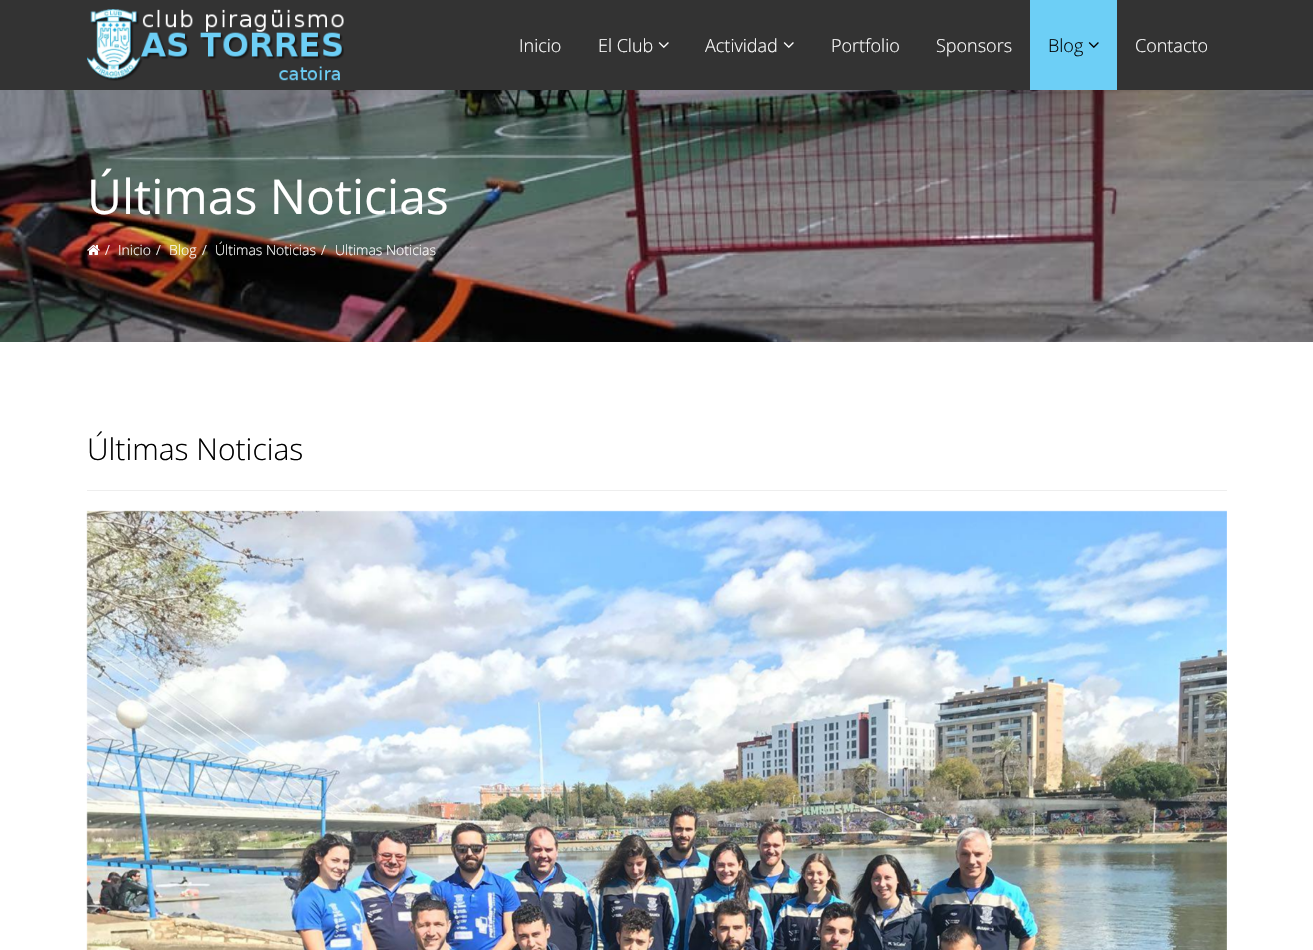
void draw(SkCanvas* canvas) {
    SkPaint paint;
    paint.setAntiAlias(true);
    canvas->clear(0xFFFFFFFF);
    paint.setColor(0xFF333333);
    canvas->drawRect(SkRect::MakeXYWH(0, 0, 1313, 90), paint);
    canvas->drawImageRect(SkImages::DeferredFromEncodedData(SkData::MakeFromFileName("img1.png")), SkRect::MakeXYWH(87, 9, 257, 72), SkSamplingOptions());
    SkFont font1(fontMgr->matchFamilyStyle("Open Sans", SkFontStyle(300, SkFontStyle::kNormal_Width, SkFontStyle::kUpright_Slant)), 18);
    font1.setSubpixel(true);
    paint.setColor(0xFFFFFFFF);
    canvas->drawString("Inicio", 519, 52, font1, paint);
    canvas->drawString("El Club", 598, 52, font1, paint);
    canvas->drawImageRect(SkImages::DeferredFromEncodedData(SkData::MakeFromFileName("img2.png")), SkRect::MakeXYWH(658, 42, 11, 6), SkSamplingOptions());
    canvas->drawString("Actividad", 705, 52, font1, paint);
    canvas->drawImageRect(SkImages::DeferredFromEncodedData(SkData::MakeFromFileName("img2.png")), SkRect::MakeXYWH(783, 42, 11, 6), SkSamplingOptions());
    canvas->drawString("Portfolio", 831, 52, font1, paint);
    canvas->drawString("Sponsors", 936, 52, font1, paint);
    paint.setColor(0xFF6DCFF6);
    canvas->drawRect(SkRect::MakeXYWH(1030, 0, 87, 90), paint);
    paint.setColor(0xFF000000);
    canvas->drawString("Blog", 1048, 52, font1, paint);
    canvas->drawImageRect(SkImages::DeferredFromEncodedData(SkData::MakeFromFileName("img3.png")), SkRect::MakeXYWH(1088, 42, 11, 6), SkSamplingOptions());
    paint.setColor(0xFFFFFFFF);
    canvas->drawString("Contacto", 1135, 52, font1, paint);
    canvas->drawImageRect(SkImages::DeferredFromEncodedData(SkData::MakeFromFileName("img4.png")), SkRect::MakeXYWH(0, 90, 1313, 252), SkSamplingOptions());
    SkFont font2(fontMgr->matchFamilyStyle("Open Sans", SkFontStyle::Normal()), 48);
    font2.setSubpixel(true);
    canvas->drawString("Últimas Noticias", 87, 214, font2, paint);
    canvas->drawImageRect(SkImages::DeferredFromEncodedData(SkData::MakeFromFileName("img5.png")), SkRect::MakeXYWH(87, 245, 13, 10), SkSamplingOptions());
    SkFont font3(fontMgr->matchFamilyStyle("Open Sans", SkFontStyle(300, SkFontStyle::kNormal_Width, SkFontStyle::kUpright_Slant)), 14);
    font3.setSubpixel(true);
    canvas->drawString("/", 105, 255, font3, paint);
    canvas->drawString("Inicio", 118, 255, font3, paint);
    canvas->drawString("/", 156, 255, font3, paint);
    canvas->drawString("Blog", 169, 255, font3, paint);
    canvas->drawString("/", 202, 255, font3, paint);
    canvas->drawString("Últimas Noticias", 215, 255, font3, paint);
    canvas->drawString("/", 321, 255, font3, paint);
    canvas->drawString("Ultimas Noticias", 335, 255, font3, paint);
    paint.setColor(0xFFEEEEEE);
    canvas->drawRect(SkRect::MakeXYWH(87, 490, 1140, 1), paint);
    SkFont font4(fontMgr->matchFamilyStyle("Open Sans", SkFontStyle(300, SkFontStyle::kNormal_Width, SkFontStyle::kUpright_Slant)), 30);
    font4.setSubpixel(true);
    paint.setColor(0xFF000000);
    canvas->drawString("Últimas Noticias", 87, 460, font4, paint);
    canvas->drawImageRect(SkImages::DeferredFromEncodedData(SkData::MakeFromFileName("img6.png")), SkRect::MakeXYWH(86, 510, 1141, 440), SkSamplingOptions());
}
